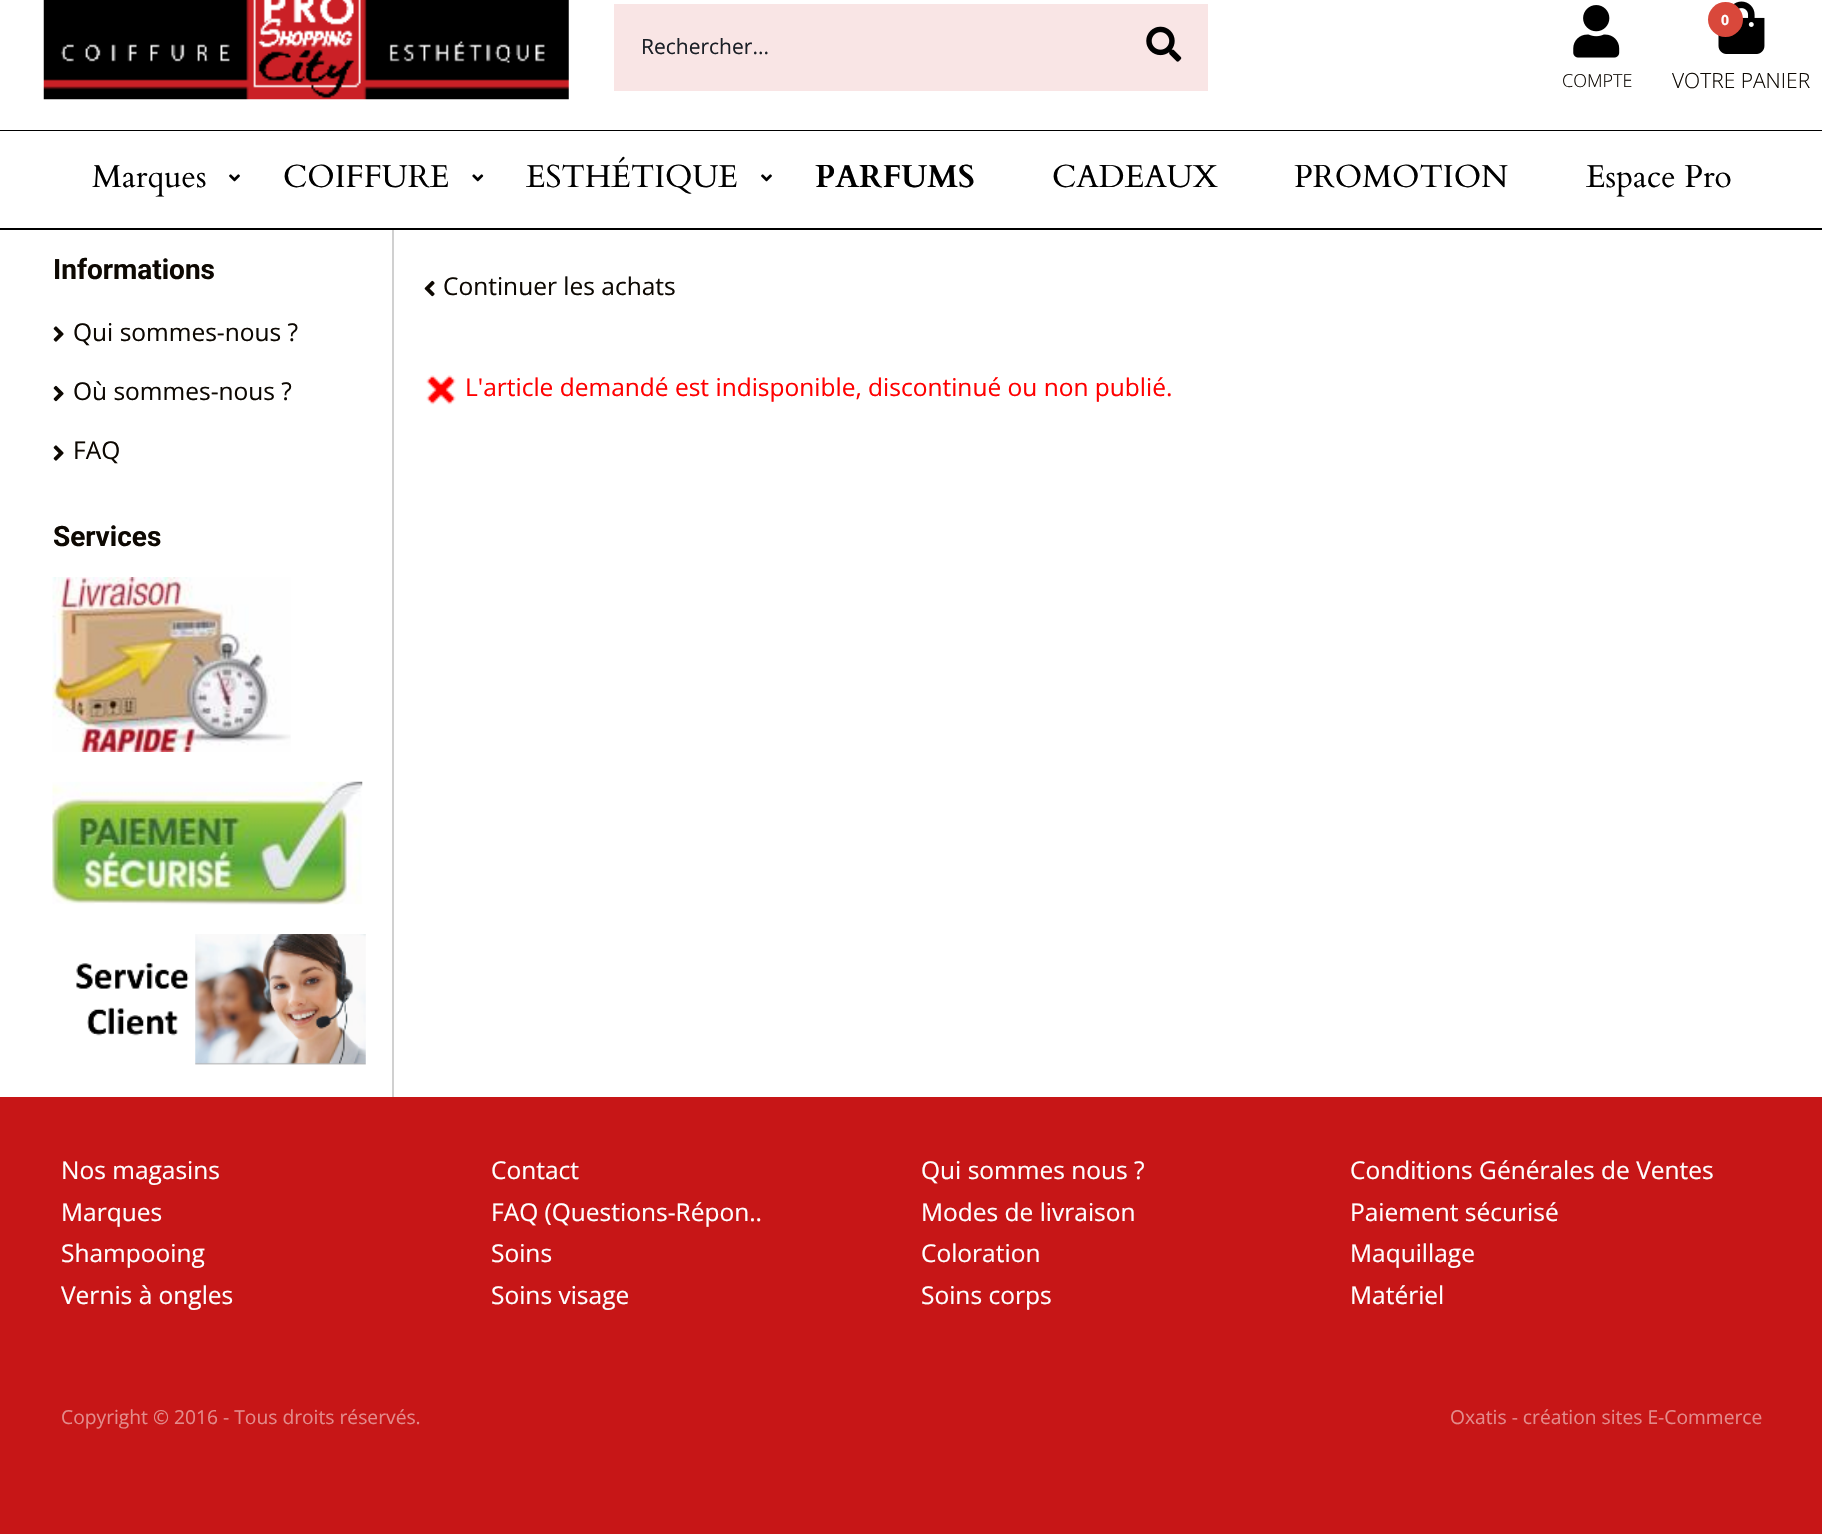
void draw(SkCanvas* canvas) {
    SkPaint paint;
    paint.setAntiAlias(true);
    canvas->clear(0xFFFFFFFF);
    canvas->drawImageRect(SkImages::DeferredFromEncodedData(SkData::MakeFromFileName("img1.png")), SkRect::MakeXYWH(43, 0, 526, 100), SkSamplingOptions());
    paint.setColor(0xFFF9E5E5);
    canvas->drawRect(SkRect::MakeXYWH(614, 4, 594, 87), paint);
    SkFont font1(fontMgr->matchFamilyStyle("Open Sans", SkFontStyle::Normal()), 21);
    font1.setSubpixel(true);
    paint.setColor(0xFF1A1F26);
    canvas->drawString("Rechercher...", 641, 54, font1, paint);
    canvas->drawImageRect(SkImages::DeferredFromEncodedData(SkData::MakeFromFileName("img2.png")), SkRect::MakeXYWH(1146, 26, 36, 36), SkSamplingOptions());
    canvas->drawImageRect(SkImages::DeferredFromEncodedData(SkData::MakeFromFileName("img3.png")), SkRect::MakeXYWH(1573, 5, 47, 53), SkSamplingOptions());
    SkFont font2(fontMgr->matchFamilyStyle("Open Sans", SkFontStyle(300, SkFontStyle::kNormal_Width, SkFontStyle::kUpright_Slant)), 18);
    font2.setSubpixel(true);
    paint.setColor(0xFF0D0802);
    canvas->drawString("COMPTE", 1562, 87, font2, paint);
    canvas->drawImageRect(SkImages::DeferredFromEncodedData(SkData::MakeFromFileName("img4.png")), SkRect::MakeXYWH(1718, 1, 47, 53), SkSamplingOptions());
    paint.setColor(0xFFD9483B);
    canvas->drawCircle(1725.5f, 19.5f, 17.5f, paint);
    SkFont font3(fontMgr->matchFamilyStyle("Open Sans", SkFontStyle::Bold()), 14);
    font3.setSubpixel(true);
    paint.setColor(0xFFFFFFFF);
    canvas->drawString("0", 1721, 25, font3, paint);
    SkFont font4(fontMgr->matchFamilyStyle("Open Sans", SkFontStyle(300, SkFontStyle::kNormal_Width, SkFontStyle::kUpright_Slant)), 21);
    font4.setSubpixel(true);
    paint.setColor(0xFF0D0802);
    canvas->drawString("VOTRE PANIER", 1672, 88, font4, paint);
    paint.setColor(0xFF000000);
    canvas->drawRect(SkRect::MakeXYWH(0, 130, 1822, 1), paint);
    paint.setColor(0xFFD0D0D0);
    canvas->drawRect(SkRect::MakeXYWH(392, 229, 2, 868), paint);
    paint.setColor(0xFF000000);
    canvas->drawRect(SkRect::MakeXYWH(0, 228, 1822, 2), paint);
    SkFont font5(fontMgr->matchFamilyStyle("Cardo", SkFontStyle::Normal()), 31.75f);
    font5.setSubpixel(true);
    canvas->drawString("Marques", 92, 187, font5, paint);
    canvas->drawImageRect(SkImages::DeferredFromEncodedData(SkData::MakeFromFileName("img5.png")), SkRect::MakeXYWH(229, 174, 11, 8), SkSamplingOptions());
    canvas->drawString("COIFFURE", 283, 187, font5, paint);
    canvas->drawImageRect(SkImages::DeferredFromEncodedData(SkData::MakeFromFileName("img6.png")), SkRect::MakeXYWH(472, 174, 12, 8), SkSamplingOptions());
    canvas->drawString("ESTHÉTIQUE", 526, 187, font5, paint);
    canvas->drawImageRect(SkImages::DeferredFromEncodedData(SkData::MakeFromFileName("img5.png")), SkRect::MakeXYWH(761, 174, 11, 8), SkSamplingOptions());
    SkFont font6(fontMgr->matchFamilyStyle("Cardo", SkFontStyle::Bold()), 31.75f);
    font6.setSubpixel(true);
    canvas->drawString("PARFUMS", 815, 187, font6, paint);
    canvas->drawString("CADEAUX", 1052, 187, font5, paint);
    canvas->drawString("PROMOTION", 1294, 187, font5, paint);
    canvas->drawString("Espace Pro", 1586, 187, font5, paint);
    SkFont font7(fontMgr->matchFamilyStyle("Roboto", SkFontStyle::Bold()), 28);
    font7.setSubpixel(true);
    paint.setColor(0xFF0D0802);
    canvas->drawString("Informations", 53, 279, font7, paint);
    canvas->drawImageRect(SkImages::DeferredFromEncodedData(SkData::MakeFromFileName("img7.png")), SkRect::MakeXYWH(53, 326, 11, 16), SkSamplingOptions());
    SkFont font8(fontMgr->matchFamilyStyle("Open Sans", SkFontStyle::Normal()), 24.5f);
    font8.setSubpixel(true);
    canvas->drawString("Qui sommes-nous ?", 73, 341, font8, paint);
    canvas->drawImageRect(SkImages::DeferredFromEncodedData(SkData::MakeFromFileName("img8.png")), SkRect::MakeXYWH(53, 385, 11, 17), SkSamplingOptions());
    canvas->drawString("Où sommes-nous ?", 73, 400, font8, paint);
    canvas->drawImageRect(SkImages::DeferredFromEncodedData(SkData::MakeFromFileName("img7.png")), SkRect::MakeXYWH(53, 445, 11, 16), SkSamplingOptions());
    canvas->drawString("FAQ", 73, 459, font8, paint);
    canvas->drawString("Services", 53, 546, font7, paint);
    canvas->drawImageRect(SkImages::DeferredFromEncodedData(SkData::MakeFromFileName("img9.png")), SkRect::MakeXYWH(52, 577, 239, 175), SkSamplingOptions());
    canvas->drawImageRect(SkImages::DeferredFromEncodedData(SkData::MakeFromFileName("img10.png")), SkRect::MakeXYWH(52, 781, 311, 124), SkSamplingOptions());
    canvas->drawImageRect(SkImages::DeferredFromEncodedData(SkData::MakeFromFileName("img11.png")), SkRect::MakeXYWH(76, 934, 290, 131), SkSamplingOptions());
    canvas->drawImageRect(SkImages::DeferredFromEncodedData(SkData::MakeFromFileName("img12.png")), SkRect::MakeXYWH(424, 280, 11, 17), SkSamplingOptions());
    canvas->drawString("Continuer les achats", 443, 295, font8, paint);
    canvas->drawImageRect(SkImages::DeferredFromEncodedData(SkData::MakeFromFileName("img13.png")), SkRect::MakeXYWH(426, 375, 30, 30), SkSamplingOptions());
    paint.setColor(0xFFFF0000);
    canvas->drawString("L'article demandé est indisponible, discontinué ou non publié.", 465, 396, font8, paint);
    paint.setColor(0xFFC71617);
    canvas->drawRect(SkRect::MakeXYWH(0, 1097, 1822, 437), paint);
    paint.setColor(0xFFFFFFFF);
    canvas->drawString("Nos magasins", 61, 1179, font8, paint);
    canvas->drawString("Contact", 491, 1179, font8, paint);
    canvas->drawString("Qui sommes nous ?", 921, 1179, font8, paint);
    canvas->drawString("Conditions Générales de Ventes", 1350, 1179, font8, paint);
    canvas->drawString("Marques", 61, 1221, font8, paint);
    canvas->drawString("FAQ (Questions-Répon..", 491, 1221, font8, paint);
    canvas->drawString("Modes de livraison", 921, 1221, font8, paint);
    canvas->drawString("Paiement sécurisé", 1350, 1221, font8, paint);
    canvas->drawString("Shampooing", 61, 1262, font8, paint);
    canvas->drawString("Soins", 491, 1262, font8, paint);
    canvas->drawString("Coloration", 921, 1262, font8, paint);
    canvas->drawString("Maquillage", 1350, 1262, font8, paint);
    canvas->drawString("Vernis à ongles", 61, 1304, font8, paint);
    canvas->drawString("Soins visage", 491, 1304, font8, paint);
    canvas->drawString("Soins corps", 921, 1304, font8, paint);
    canvas->drawString("Matériel", 1350, 1304, font8, paint);
    SkFont font9(fontMgr->matchFamilyStyle("Open Sans", SkFontStyle::Normal()), 19.25f);
    font9.setSubpixel(true);
    paint.setColor(0xFFE38B8B);
    canvas->drawString("Copyright © 2016 - Tous droits réservés.", 61, 1424, font9, paint);
    canvas->drawString("Oxatis - création sites E-Commerce", 1450, 1424, font9, paint);
}
